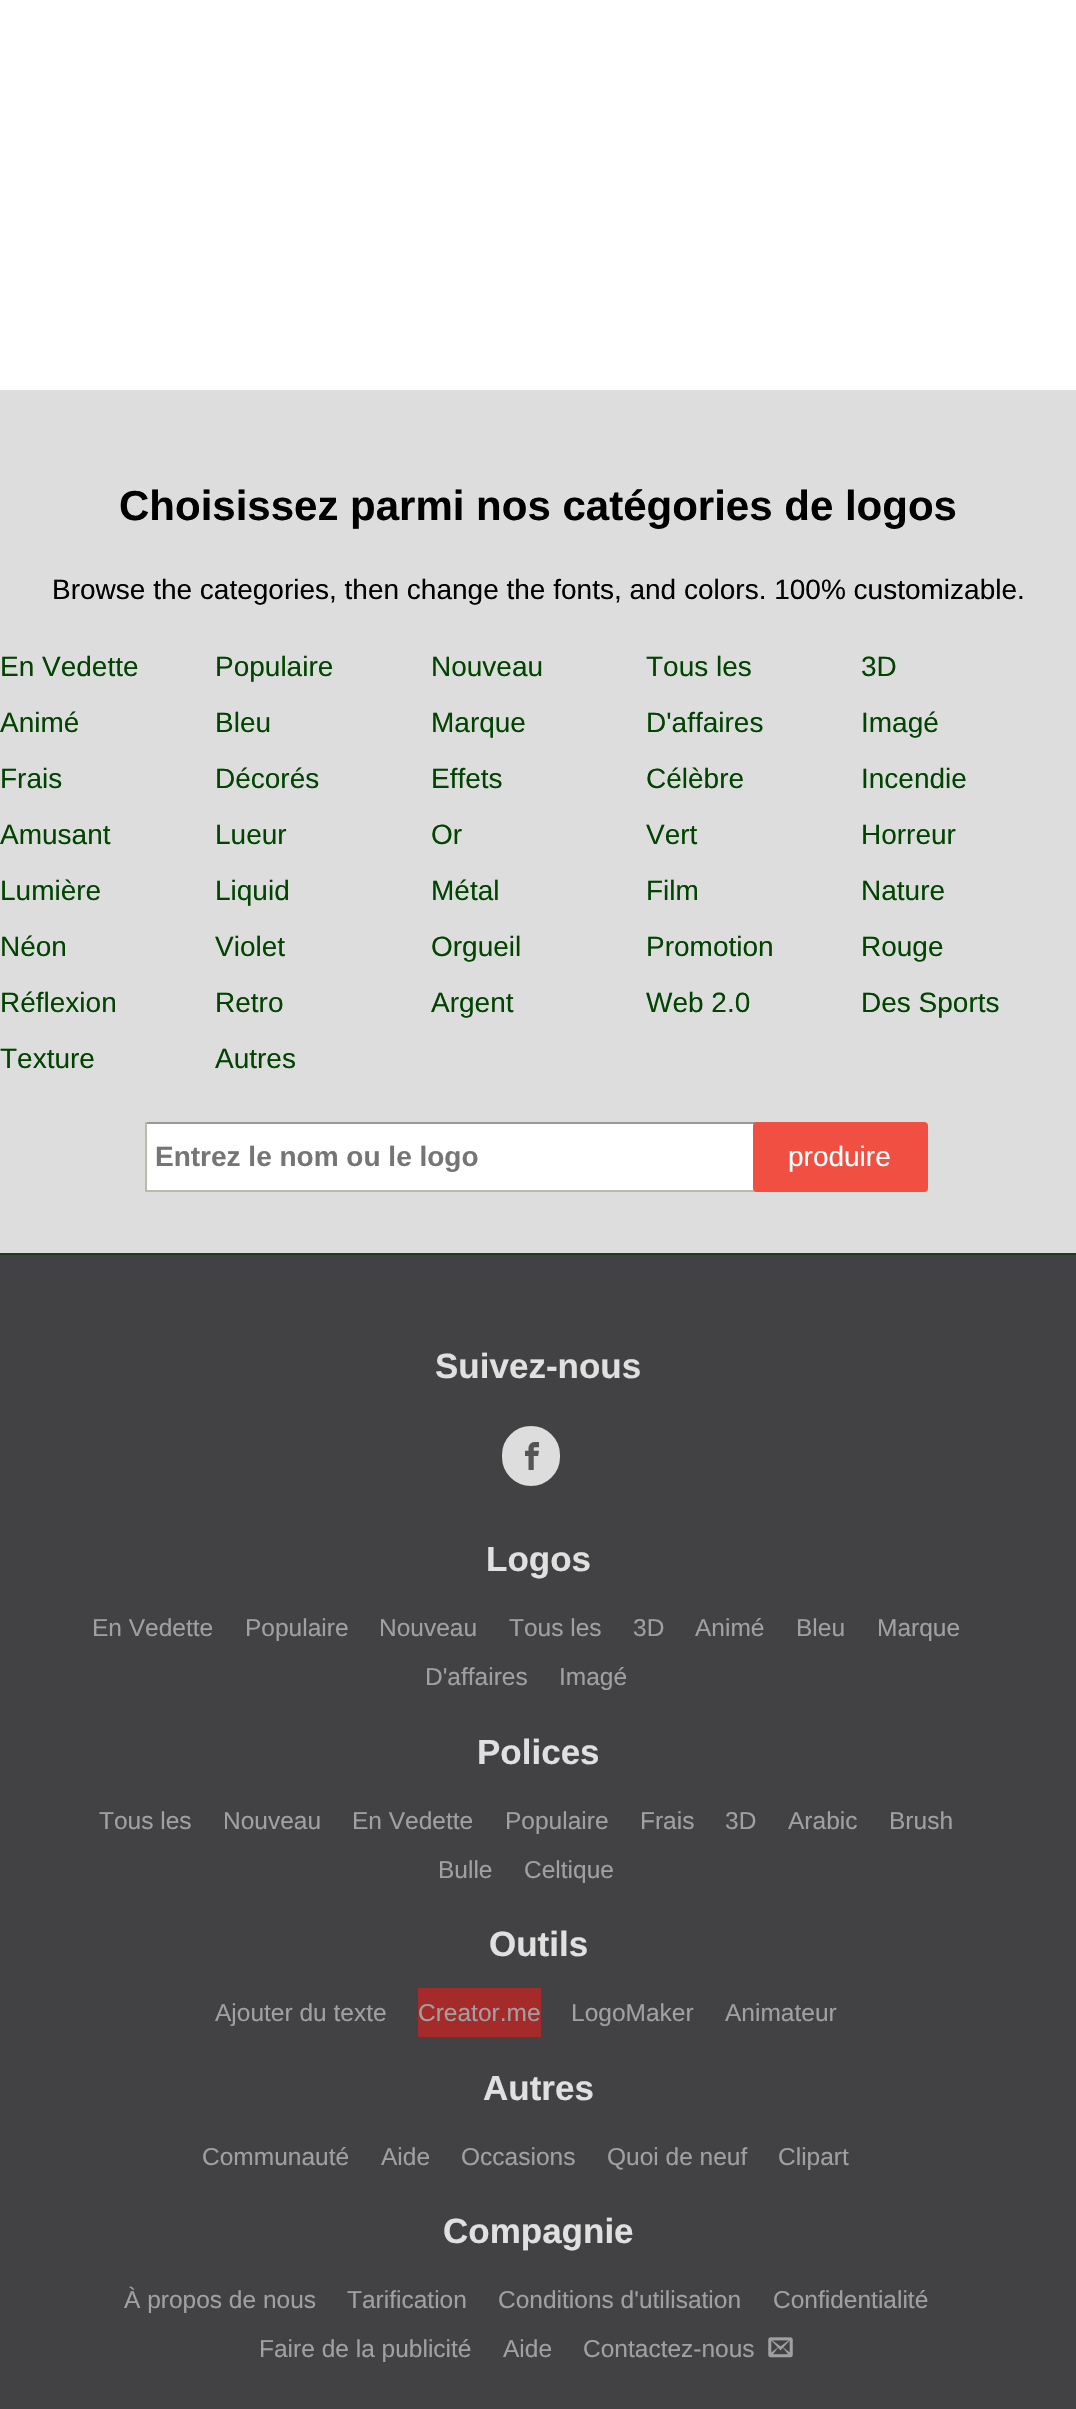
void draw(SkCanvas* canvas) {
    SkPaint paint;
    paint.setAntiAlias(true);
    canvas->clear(0xFFFFFFFF);
    paint.setColor(0xFFDDDDDD);
    canvas->drawRect(SkRect::MakeXYWH(0, 390, 1076, 863), paint);
    SkFont font1(fontMgr->matchFamilyStyle("Liberation Sans", SkFontStyle::Bold()), 42);
    font1.setSubpixel(true);
    paint.setColor(0xFF000000);
    canvas->drawString("Choisissez parmi nos catégories de logos", 119, 520, font1, paint);
    SkFont font2(fontMgr->matchFamilyStyle("Liberation Sans", SkFontStyle::Normal()), 28);
    font2.setSubpixel(true);
    canvas->drawString("Browse the categories, then change the fonts, and colors. 100% customizable.", 52, 599, font2, paint);
    paint.setColor(0xFF004400);
    canvas->drawString("En Vedette", 0, 676, font2, paint);
    canvas->drawString("Populaire", 215, 676, font2, paint);
    canvas->drawString("Nouveau", 431, 676, font2, paint);
    canvas->drawString("Tous les", 646, 676, font2, paint);
    canvas->drawString("3D", 861, 676, font2, paint);
    canvas->drawString("Animé", 0, 732, font2, paint);
    canvas->drawString("Bleu", 215, 732, font2, paint);
    canvas->drawString("Marque", 431, 732, font2, paint);
    canvas->drawString("D'affaires", 646, 732, font2, paint);
    canvas->drawString("Imagé", 861, 732, font2, paint);
    canvas->drawString("Frais", 0, 788, font2, paint);
    canvas->drawString("Décorés", 215, 788, font2, paint);
    canvas->drawString("Effets", 431, 788, font2, paint);
    canvas->drawString("Célèbre", 646, 788, font2, paint);
    canvas->drawString("Incendie", 861, 788, font2, paint);
    canvas->drawString("Amusant", 0, 844, font2, paint);
    canvas->drawString("Lueur", 215, 844, font2, paint);
    canvas->drawString("Or", 431, 844, font2, paint);
    canvas->drawString("Vert", 646, 844, font2, paint);
    canvas->drawString("Horreur", 861, 844, font2, paint);
    canvas->drawString("Lumière", 0, 900, font2, paint);
    canvas->drawString("Liquid", 215, 900, font2, paint);
    canvas->drawString("Métal", 431, 900, font2, paint);
    canvas->drawString("Film", 646, 900, font2, paint);
    canvas->drawString("Nature", 861, 900, font2, paint);
    canvas->drawString("Néon", 0, 956, font2, paint);
    canvas->drawString("Violet", 215, 956, font2, paint);
    canvas->drawString("Orgueil", 431, 956, font2, paint);
    canvas->drawString("Promotion", 646, 956, font2, paint);
    canvas->drawString("Rouge", 861, 956, font2, paint);
    canvas->drawString("Réflexion", 0, 1012, font2, paint);
    canvas->drawString("Retro", 215, 1012, font2, paint);
    canvas->drawString("Argent", 431, 1012, font2, paint);
    canvas->drawString("Web 2.0", 646, 1012, font2, paint);
    canvas->drawString("Des Sports", 861, 1012, font2, paint);
    canvas->drawString("Texture", 0, 1068, font2, paint);
    canvas->drawString("Autres", 215, 1068, font2, paint);
    paint.setColor(0xFFFFFFFF);
    canvas->drawRect(SkRect::MakeXYWH(147, 1124, 607, 66), paint);
    paint.setColor(0xFF999999);
    canvas->drawRect(SkRect::MakeXYWH(145, 1122, 612, 2), paint);
    paint.setColor(0xFFBBBBAA);
    canvas->drawRect(SkRect::MakeXYWH(145, 1190, 612, 2), paint);
    canvas->drawRect(SkRect::MakeXYWH(145, 1122, 2, 70), paint);
    SkFont font3(fontMgr->matchFamilyStyle("Liberation Sans", SkFontStyle::Bold()), 28);
    font3.setSubpixel(true);
    paint.setColor(0xFF757575);
    canvas->drawString("Entrez le nom ou le logo", 155, 1166, font3, paint);
    paint.setColor(0xFFF04F41);
    canvas->drawRoundRect(SkRect::MakeXYWH(754, 1123, 173, 68), 3, 3, paint);
    paint.setStyle(SkPaint::kStroke_Style);
    paint.setStrokeWidth(2);
    canvas->drawRoundRect(SkRect::MakeXYWH(754, 1123, 173, 68), 3, 3, paint);
    paint.setStyle(SkPaint::kFill_Style);
    paint.setColor(0xFFFFFFFF);
    canvas->drawString("produire", 788, 1166, font2, paint);
    paint.setColor(0xFF424143);
    canvas->drawRect(SkRect::MakeXYWH(0, 1255, 1076, 1154), paint);
    paint.setColor(0xFF1C401C);
    canvas->drawRect(SkRect::MakeXYWH(0, 1253, 1076, 2), paint);
    SkFont font4(fontMgr->matchFamilyStyle("Liberation Sans", SkFontStyle::Bold()), 35);
    font4.setSubpixel(true);
    paint.setColor(0xFFE0E0E1);
    canvas->drawString("Suivez-nous", 435, 1378, font4, paint);
    paint.setColor(0xFFDDDDDD);
    canvas->drawRoundRect(SkRect::MakeXYWH(503, 1427, 56, 58), 28, 28, paint);
    paint.setStyle(SkPaint::kStroke_Style);
    canvas->drawRoundRect(SkRect::MakeXYWH(503, 1427, 56, 58), 28, 28, paint);
    canvas->drawImageRect(SkImages::DeferredFromEncodedData(SkData::MakeFromFileName("img1.png")), SkRect::MakeXYWH(525, 1442, 14, 28), SkSamplingOptions());
    paint.setStyle(SkPaint::kFill_Style);
    paint.setColor(0xFFE0E0E1);
    canvas->drawString("Logos", 486, 1571, font4, paint);
    SkFont font5(fontMgr->matchFamilyStyle("Liberation Sans", SkFontStyle::Normal()), 24.5f);
    font5.setSubpixel(true);
    paint.setColor(0xFFA0A0A1);
    canvas->drawString("En Vedette", 92, 1636, font5, paint);
    canvas->drawString("Populaire", 245, 1636, font5, paint);
    canvas->drawString("Nouveau", 379, 1636, font5, paint);
    canvas->drawString("Tous les", 509, 1636, font5, paint);
    canvas->drawString("3D", 633, 1636, font5, paint);
    canvas->drawString("Animé", 695, 1636, font5, paint);
    canvas->drawString("Bleu", 796, 1636, font5, paint);
    canvas->drawString("Marque", 877, 1636, font5, paint);
    canvas->drawString("D'affaires", 425, 1685, font5, paint);
    canvas->drawString("Imagé", 559, 1685, font5, paint);
    paint.setColor(0xFFE0E0E1);
    canvas->drawString("Polices", 477, 1764, font4, paint);
    paint.setColor(0xFFA0A0A1);
    canvas->drawString("Tous les", 99, 1829, font5, paint);
    canvas->drawString("Nouveau", 223, 1829, font5, paint);
    canvas->drawString("En Vedette", 352, 1829, font5, paint);
    canvas->drawString("Populaire", 505, 1829, font5, paint);
    canvas->drawString("Frais", 640, 1829, font5, paint);
    canvas->drawString("3D", 725, 1829, font5, paint);
    canvas->drawString("Arabic", 788, 1829, font5, paint);
    canvas->drawString("Brush", 889, 1829, font5, paint);
    canvas->drawString("Bulle", 438, 1878, font5, paint);
    canvas->drawString("Celtique", 524, 1878, font5, paint);
    paint.setColor(0xFFE0E0E1);
    canvas->drawString("Outils", 489, 1956, font4, paint);
    paint.setColor(0xFFA0A0A1);
    canvas->drawString("Ajouter du texte", 215, 2021, font5, paint);
    paint.setColor(0xFFA52A2A);
    canvas->drawRect(SkRect::MakeXYWH(418, 1988, 123, 49), paint);
    paint.setColor(0xFFA0A0A1);
    canvas->drawString("Creator.me", 418, 2021, font5, paint);
    canvas->drawString("LogoMaker", 571, 2021, font5, paint);
    canvas->drawString("Animateur", 725, 2021, font5, paint);
    paint.setColor(0xFFE0E0E1);
    canvas->drawString("Autres", 483, 2100, font4, paint);
    paint.setColor(0xFFA0A0A1);
    canvas->drawString("Communauté", 202, 2165, font5, paint);
    canvas->drawString("Aide", 381, 2165, font5, paint);
    canvas->drawString("Occasions", 461, 2165, font5, paint);
    canvas->drawString("Quoi de neuf", 607, 2165, font5, paint);
    canvas->drawString("Clipart", 778, 2165, font5, paint);
    paint.setColor(0xFFE0E0E1);
    canvas->drawString("Compagnie", 443, 2243, font4, paint);
    paint.setColor(0xFFA0A0A1);
    canvas->drawString("À propos de nous", 124, 2308, font5, paint);
    canvas->drawString("Tarification", 347, 2308, font5, paint);
    canvas->drawString("Conditions d'utilisation", 498, 2308, font5, paint);
    canvas->drawString("Confidentialité", 773, 2308, font5, paint);
    canvas->drawString("Faire de la publicité", 259, 2357, font5, paint);
    canvas->drawString("Aide", 503, 2357, font5, paint);
    canvas->drawString("Contactez-nous", 583, 2357, font5, paint);
    canvas->drawImageRect(SkImages::DeferredFromEncodedData(SkData::MakeFromFileName("img2.png")), SkRect::MakeXYWH(768, 2337, 25, 21), SkSamplingOptions());
}
